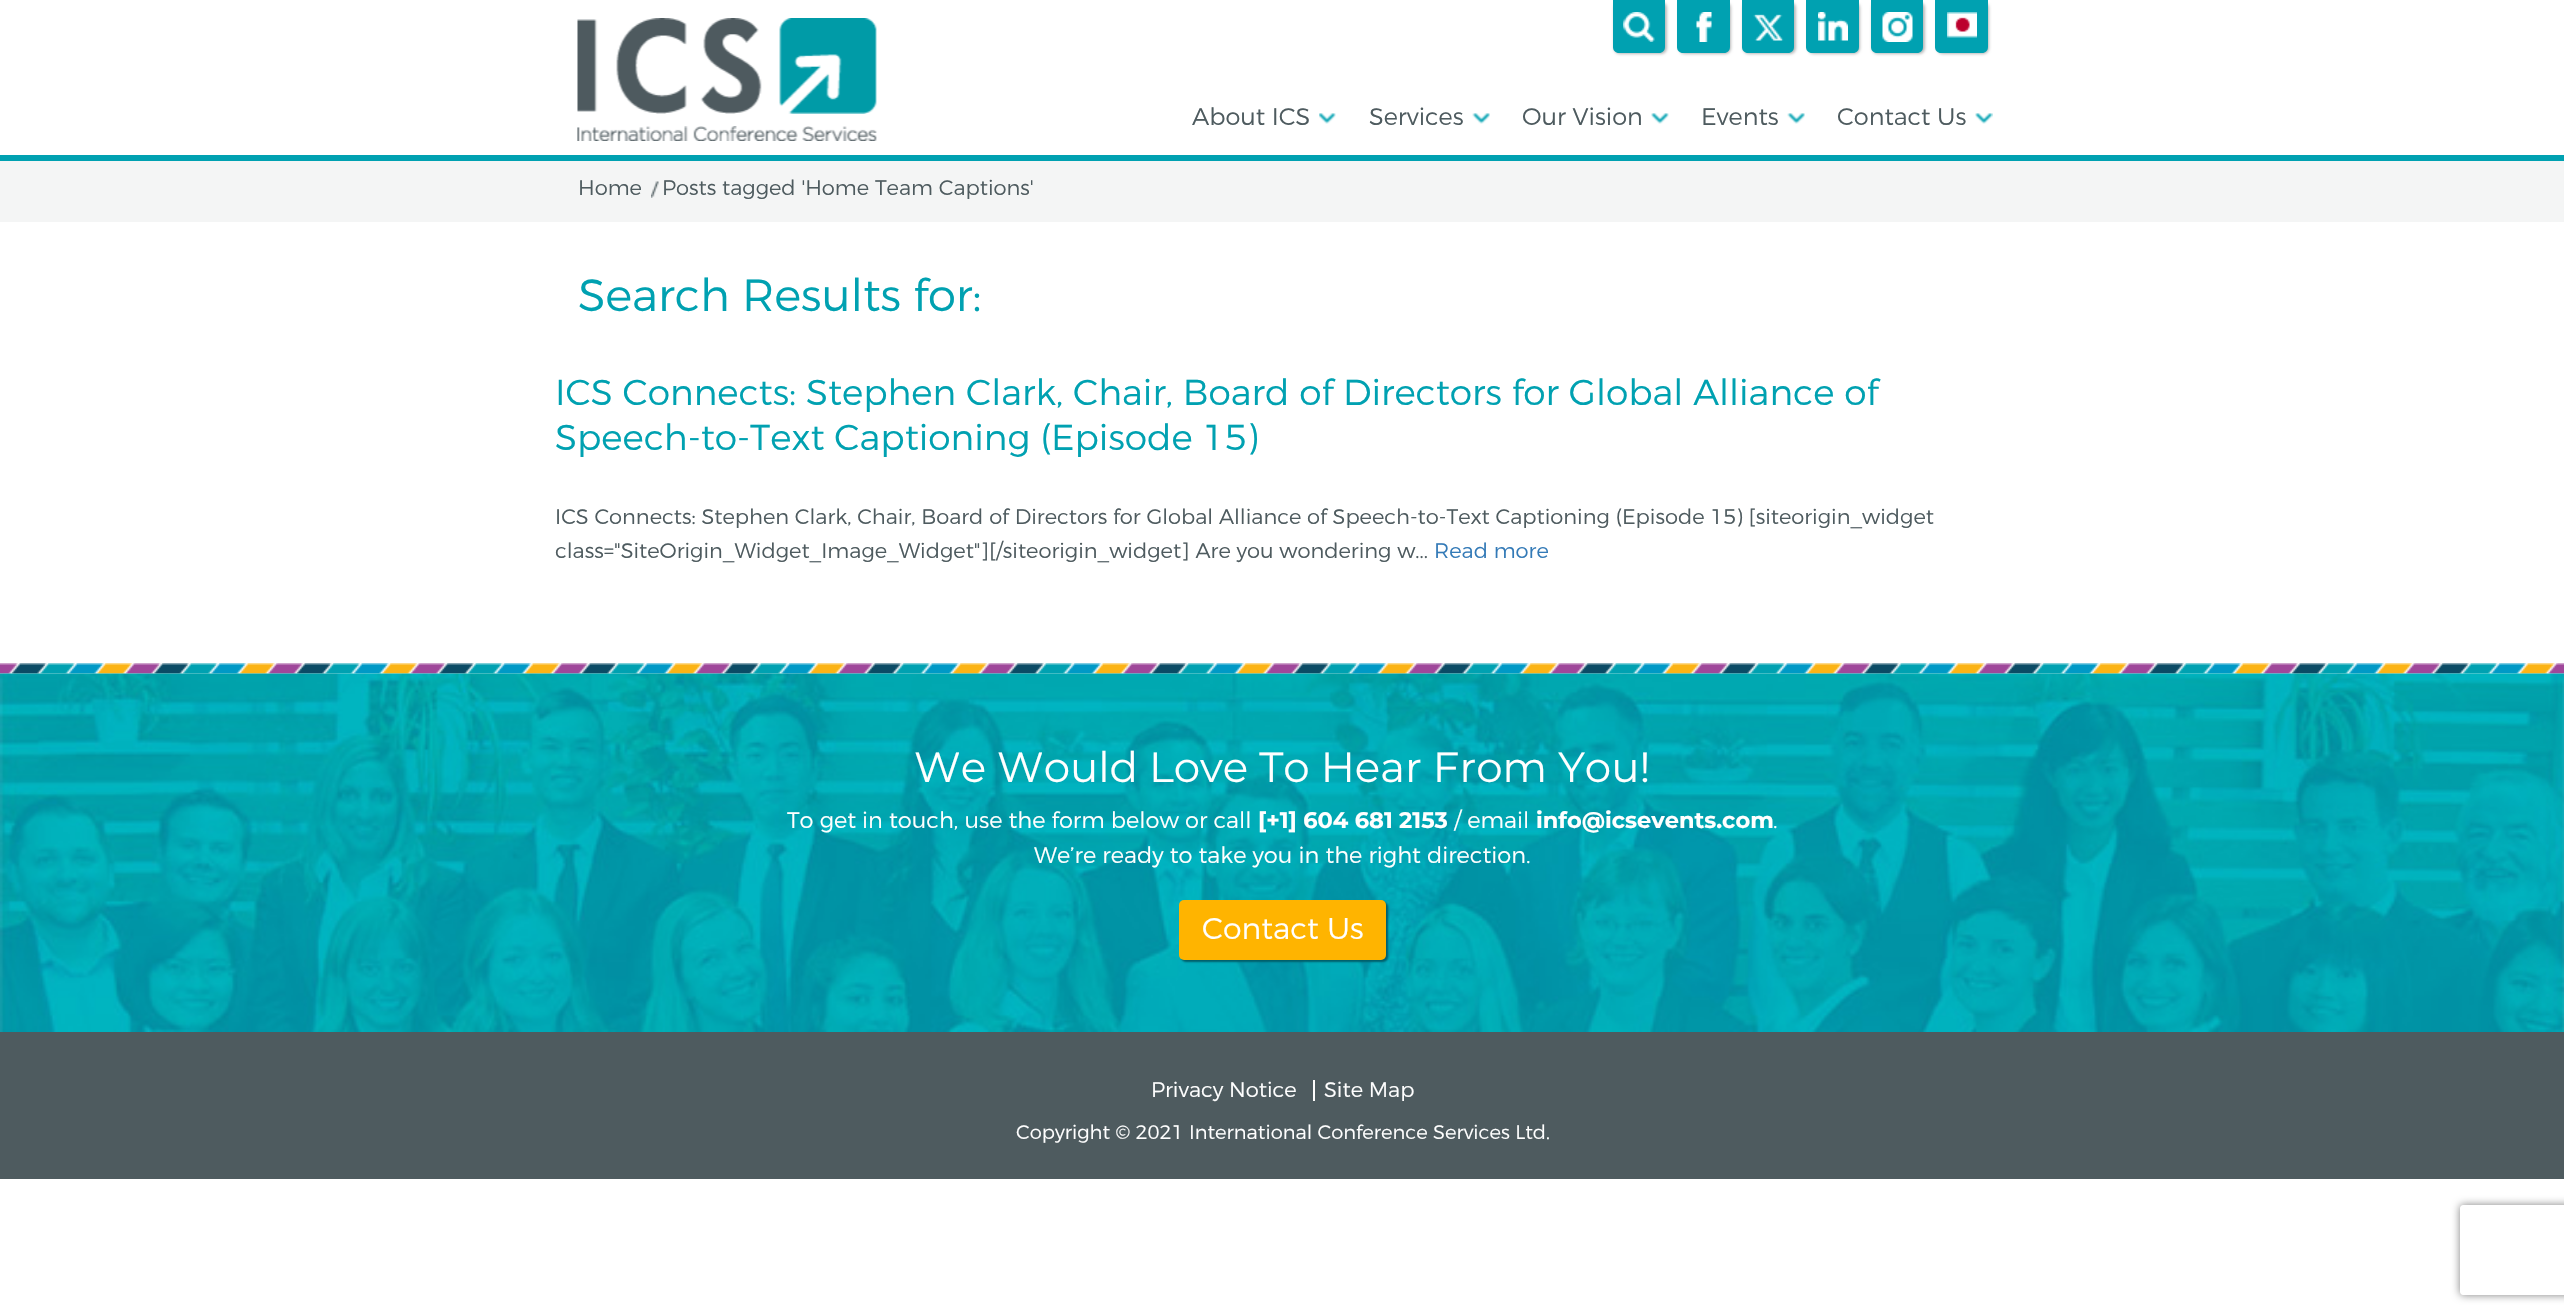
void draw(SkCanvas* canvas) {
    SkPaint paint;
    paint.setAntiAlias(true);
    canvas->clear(0xFFFFFFFF);
    paint.setColor(0xFF00A1B1);
    canvas->drawRect(SkRect::MakeXYWH(0, 155, 2564, 6), paint);
    canvas->drawImageRect(SkImages::DeferredFromEncodedData(SkData::MakeFromFileName("img1.png")), SkRect::MakeXYWH(577, 18, 300, 96), SkSamplingOptions());
    canvas->drawImageRect(SkImages::DeferredFromEncodedData(SkData::MakeFromFileName("img2.png")), SkRect::MakeXYWH(577, 126, 300, 15), SkSamplingOptions());
    paint.setColor(0xFFB9B9B9);
    paint.setMaskFilter(SkMaskFilter::MakeBlur(kNormal_SkBlurStyle, 1.5f));
    canvas->drawRoundRect(SkRect::MakeXYWH(1614, 2, 53, 52), 6, 6, paint);
    paint.setMaskFilter(nullptr);
    paint.setColor(0xFF00A1B1);
    canvas->drawPath(SkPathBuilder().moveTo(1613, 0).lineTo(1665, 0).lineTo(1665, 47).cubicTo(1665, 50.5f, 1662.5f, 53, 1659, 53).lineTo(1619, 53).cubicTo(1615.5f, 53, 1613, 50.5f, 1613, 47).close().detach(), paint);
    canvas->drawImageRect(SkImages::DeferredFromEncodedData(SkData::MakeFromFileName("img3.png")), SkRect::MakeXYWH(1623, 12, 32, 30), SkSamplingOptions());
    paint.setColor(0xFFB9B9B9);
    paint.setMaskFilter(SkMaskFilter::MakeBlur(kNormal_SkBlurStyle, 1.5f));
    canvas->drawRoundRect(SkRect::MakeXYWH(1679, 2, 52, 52), 6, 6, paint);
    paint.setMaskFilter(nullptr);
    paint.setColor(0xFF00A1B1);
    canvas->drawPath(SkPathBuilder().moveTo(1677, 0).lineTo(1730, 0).lineTo(1730, 47).cubicTo(1730, 50.5f, 1727.5f, 53, 1724, 53).lineTo(1683, 53).cubicTo(1679.5f, 53, 1677, 50.5f, 1677, 47).close().detach(), paint);
    canvas->drawImageRect(SkImages::DeferredFromEncodedData(SkData::MakeFromFileName("img4.png")), SkRect::MakeXYWH(1696, 12, 16, 30), SkSamplingOptions());
    paint.setColor(0xFFB9B9B9);
    paint.setMaskFilter(SkMaskFilter::MakeBlur(kNormal_SkBlurStyle, 1.5f));
    canvas->drawRoundRect(SkRect::MakeXYWH(1743, 2, 53, 52), 6, 6, paint);
    paint.setMaskFilter(nullptr);
    paint.setColor(0xFF00A1B1);
    canvas->drawPath(SkPathBuilder().moveTo(1742, 0).lineTo(1794, 0).lineTo(1794, 47).cubicTo(1794, 50.5f, 1791.5f, 53, 1788, 53).lineTo(1748, 53).cubicTo(1744.5f, 53, 1742, 50.5f, 1742, 47).close().detach(), paint);
    canvas->drawImageRect(SkImages::DeferredFromEncodedData(SkData::MakeFromFileName("img5.png")), SkRect::MakeXYWH(1753, 14, 31, 27), SkSamplingOptions());
    paint.setColor(0xFFB9B9B9);
    paint.setMaskFilter(SkMaskFilter::MakeBlur(kNormal_SkBlurStyle, 1.5f));
    canvas->drawRoundRect(SkRect::MakeXYWH(1808, 2, 52, 52), 6, 6, paint);
    paint.setMaskFilter(nullptr);
    paint.setColor(0xFF00A1B1);
    canvas->drawPath(SkPathBuilder().moveTo(1806, 0).lineTo(1859, 0).lineTo(1859, 47).cubicTo(1859, 50.5f, 1856.5f, 53, 1853, 53).lineTo(1812, 53).cubicTo(1808.5f, 53, 1806, 50.5f, 1806, 47).close().detach(), paint);
    canvas->drawImageRect(SkImages::DeferredFromEncodedData(SkData::MakeFromFileName("img6.png")), SkRect::MakeXYWH(1818, 12, 30, 29), SkSamplingOptions());
    paint.setColor(0xFFB9B9B9);
    paint.setMaskFilter(SkMaskFilter::MakeBlur(kNormal_SkBlurStyle, 1.5f));
    canvas->drawRoundRect(SkRect::MakeXYWH(1872, 2, 53, 52), 6, 6, paint);
    paint.setMaskFilter(nullptr);
    paint.setColor(0xFF00A1B1);
    canvas->drawPath(SkPathBuilder().moveTo(1871, 0).lineTo(1923, 0).lineTo(1923, 47).cubicTo(1923, 50.5f, 1920.5f, 53, 1917, 53).lineTo(1877, 53).cubicTo(1873.5f, 53, 1871, 50.5f, 1871, 47).close().detach(), paint);
    canvas->drawImageRect(SkImages::DeferredFromEncodedData(SkData::MakeFromFileName("img7.png")), SkRect::MakeXYWH(1882, 12, 31, 30), SkSamplingOptions());
    paint.setColor(0xFFB9B9B9);
    paint.setMaskFilter(SkMaskFilter::MakeBlur(kNormal_SkBlurStyle, 1.5f));
    canvas->drawRoundRect(SkRect::MakeXYWH(1937, 2, 52, 52), 6, 6, paint);
    paint.setMaskFilter(nullptr);
    paint.setColor(0xFF00A1B1);
    canvas->drawPath(SkPathBuilder().moveTo(1935, 0).lineTo(1988, 0).lineTo(1988, 47).cubicTo(1988, 50.5f, 1985.5f, 53, 1982, 53).lineTo(1941, 53).cubicTo(1937.5f, 53, 1935, 50.5f, 1935, 47).close().detach(), paint);
    canvas->drawImageRect(SkImages::DeferredFromEncodedData(SkData::MakeFromFileName("img8.png")), SkRect::MakeXYWH(1947, 12, 30, 26), SkSamplingOptions());
    SkFont font1(fontMgr->matchFamilyStyle("Montserrat", SkFontStyle(300, SkFontStyle::kNormal_Width, SkFontStyle::kUpright_Slant)), 24);
    font1.setSubpixel(true);
    paint.setColor(0xFF4E5B5F);
    canvas->drawString("About ICS", 1192, 125, font1, paint);
    canvas->drawImageRect(SkImages::DeferredFromEncodedData(SkData::MakeFromFileName("img9.png")), SkRect::MakeXYWH(1319, 113, 17, 11), SkSamplingOptions());
    canvas->drawString("Services", 1369, 125, font1, paint);
    canvas->drawImageRect(SkImages::DeferredFromEncodedData(SkData::MakeFromFileName("img10.png")), SkRect::MakeXYWH(1472, 113, 18, 11), SkSamplingOptions());
    canvas->drawString("Our Vision", 1522, 125, font1, paint);
    canvas->drawImageRect(SkImages::DeferredFromEncodedData(SkData::MakeFromFileName("img11.png")), SkRect::MakeXYWH(1651, 113, 18, 11), SkSamplingOptions());
    canvas->drawString("Events", 1701, 125, font1, paint);
    canvas->drawImageRect(SkImages::DeferredFromEncodedData(SkData::MakeFromFileName("img10.png")), SkRect::MakeXYWH(1787, 113, 18, 11), SkSamplingOptions());
    canvas->drawString("Contact Us", 1837, 125, font1, paint);
    canvas->drawImageRect(SkImages::DeferredFromEncodedData(SkData::MakeFromFileName("img12.png")), SkRect::MakeXYWH(1975, 113, 18, 11), SkSamplingOptions());
    paint.setColor(0xFFF4F5F5);
    canvas->drawRect(SkRect::MakeXYWH(0, 161, 2564, 61), paint);
    SkFont font2(fontMgr->matchFamilyStyle("Montserrat", SkFontStyle(300, SkFontStyle::kNormal_Width, SkFontStyle::kUpright_Slant)), 21);
    font2.setSubpixel(true);
    paint.setColor(0xFF4E5B5F);
    canvas->drawString("Home", 578, 195, font2, paint);
    canvas->drawImageRect(SkImages::DeferredFromEncodedData(SkData::MakeFromFileName("img13.png")), SkRect::MakeXYWH(651, 181, 8, 17), SkSamplingOptions());
    canvas->drawString("Posts tagged 'Home Team Captions'", 662, 195, font2, paint);
    SkFont font3(fontMgr->matchFamilyStyle("Montserrat", SkFontStyle(300, SkFontStyle::kNormal_Width, SkFontStyle::kUpright_Slant)), 45);
    font3.setSubpixel(true);
    paint.setColor(0xFF00A1B1);
    canvas->drawString("Search Results for:", 578, 311, font3, paint);
    SkFont font4(fontMgr->matchFamilyStyle("Montserrat", SkFontStyle(300, SkFontStyle::kNormal_Width, SkFontStyle::kUpright_Slant)), 36);
    font4.setSubpixel(true);
    canvas->drawString("ICS Connects: Stephen Clark, Chair, Board of Directors for Global Alliance of", 555, 405, font4, paint);
    canvas->drawString("Speech-to-Text Captioning (Episode 15)", 555, 450, font4, paint);
    paint.setColor(0xFF4E5B5F);
    canvas->drawString("ICS Connects: Stephen Clark, Chair, Board of Directors for Global Alliance of Speech-to-Text Captioning (Episode 15) [siteorigin_widget", 555, 524, font2, paint);
    canvas->drawString("class=\"SiteOrigin_Widget_Image_Widget\"][/siteorigin_widget] Are you wondering w...", 555, 558, font2, paint);
    paint.setColor(0xFF337AB7);
    canvas->drawString("Read more", 1434, 558, font2, paint);
    canvas->drawImageRect(SkImages::DeferredFromEncodedData(SkData::MakeFromFileName("img14.png")), SkRect::MakeXYWH(0, 663, 2564, 11), SkSamplingOptions());
    canvas->drawImageRect(SkImages::DeferredFromEncodedData(SkData::MakeFromFileName("img15.png")), SkRect::MakeXYWH(0, 673, 2564, 359), SkSamplingOptions());
    SkFont font5(fontMgr->matchFamilyStyle("Montserrat", SkFontStyle(100, SkFontStyle::kNormal_Width, SkFontStyle::kUpright_Slant)), 42);
    font5.setSubpixel(true);
    paint.setColor(0xFFFFFFFF);
    canvas->drawString("We Would Love To Hear From You!", 914, 782, font5, paint);
    SkFont font6(fontMgr->matchFamilyStyle("Montserrat", SkFontStyle(300, SkFontStyle::kNormal_Width, SkFontStyle::kUpright_Slant)), 22.5f);
    font6.setSubpixel(true);
    canvas->drawString("To get in touch, use the form below or call", 787, 828, font6, paint);
    SkFont font7(fontMgr->matchFamilyStyle("Montserrat", SkFontStyle::Bold()), 22.5f);
    font7.setSubpixel(true);
    canvas->drawString("[+1] 604 681 2153", 1258, 828, font7, paint);
    canvas->drawString("/ email", 1454, 828, font6, paint);
    canvas->drawString("info@icsevents.com", 1536, 828, font7, paint);
    canvas->drawString(".", 1773, 828, font6, paint);
    canvas->drawString("We’re ready to take you in the right direction.", 1034, 863, font6, paint);
    paint.setColor(0xFF005E6A);
    paint.setMaskFilter(SkMaskFilter::MakeBlur(kNormal_SkBlurStyle, 1));
    canvas->drawRoundRect(SkRect::MakeXYWH(1181, 902, 207, 60), 5, 5, paint);
    paint.setMaskFilter(nullptr);
    paint.setColor(0xFFFFB400);
    canvas->drawRoundRect(SkRect::MakeXYWH(1179, 900, 207, 60), 5, 5, paint);
    SkFont font8(fontMgr->matchFamilyStyle("Montserrat", SkFontStyle(300, SkFontStyle::kNormal_Width, SkFontStyle::kUpright_Slant)), 30);
    font8.setSubpixel(true);
    paint.setColor(0xFFFFFFFF);
    canvas->drawString("Contact Us", 1202, 939, font8, paint);
    paint.setColor(0xFF4E5B5F);
    canvas->drawRect(SkRect::MakeXYWH(0, 1032, 2564, 147), paint);
    paint.setColor(0xFFFFFFFF);
    canvas->drawString("Privacy Notice", 1151, 1097, font2, paint);
    canvas->drawRect(SkRect::MakeXYWH(1313, 1080, 2, 21), paint);
    canvas->drawString("Site Map", 1324, 1097, font2, paint);
    SkFont font9(fontMgr->matchFamilyStyle("Montserrat", SkFontStyle(300, SkFontStyle::kNormal_Width, SkFontStyle::kUpright_Slant)), 19.5f);
    font9.setSubpixel(true);
    canvas->drawString("Copyright © 2021 International Conference Services Ltd.", 1016, 1139, font9, paint);
    canvas->save();
    canvas->clipPath(SkPathBuilder(SkPathFillType::kEvenOdd).moveTo(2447, 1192).lineTo(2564, 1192).lineTo(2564, 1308).lineTo(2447, 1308).close().moveTo(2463, 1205).lineTo(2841, 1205).cubicTo(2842.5f, 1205, 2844, 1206.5f, 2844, 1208).lineTo(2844, 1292).cubicTo(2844, 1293.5f, 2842.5f, 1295, 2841, 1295).lineTo(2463, 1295).cubicTo(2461.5f, 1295, 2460, 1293.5f, 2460, 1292).lineTo(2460, 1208).cubicTo(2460, 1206.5f, 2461.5f, 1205, 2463, 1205).close().detach(), true);
    paint.setColor(0xFF808080);
    paint.setMaskFilter(SkMaskFilter::MakeBlur(kNormal_SkBlurStyle, 4));
    canvas->drawRoundRect(SkRect::MakeXYWH(2460, 1205, 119, 90), 3, 3, paint);
    paint.setMaskFilter(nullptr);
    canvas->restore();
}
